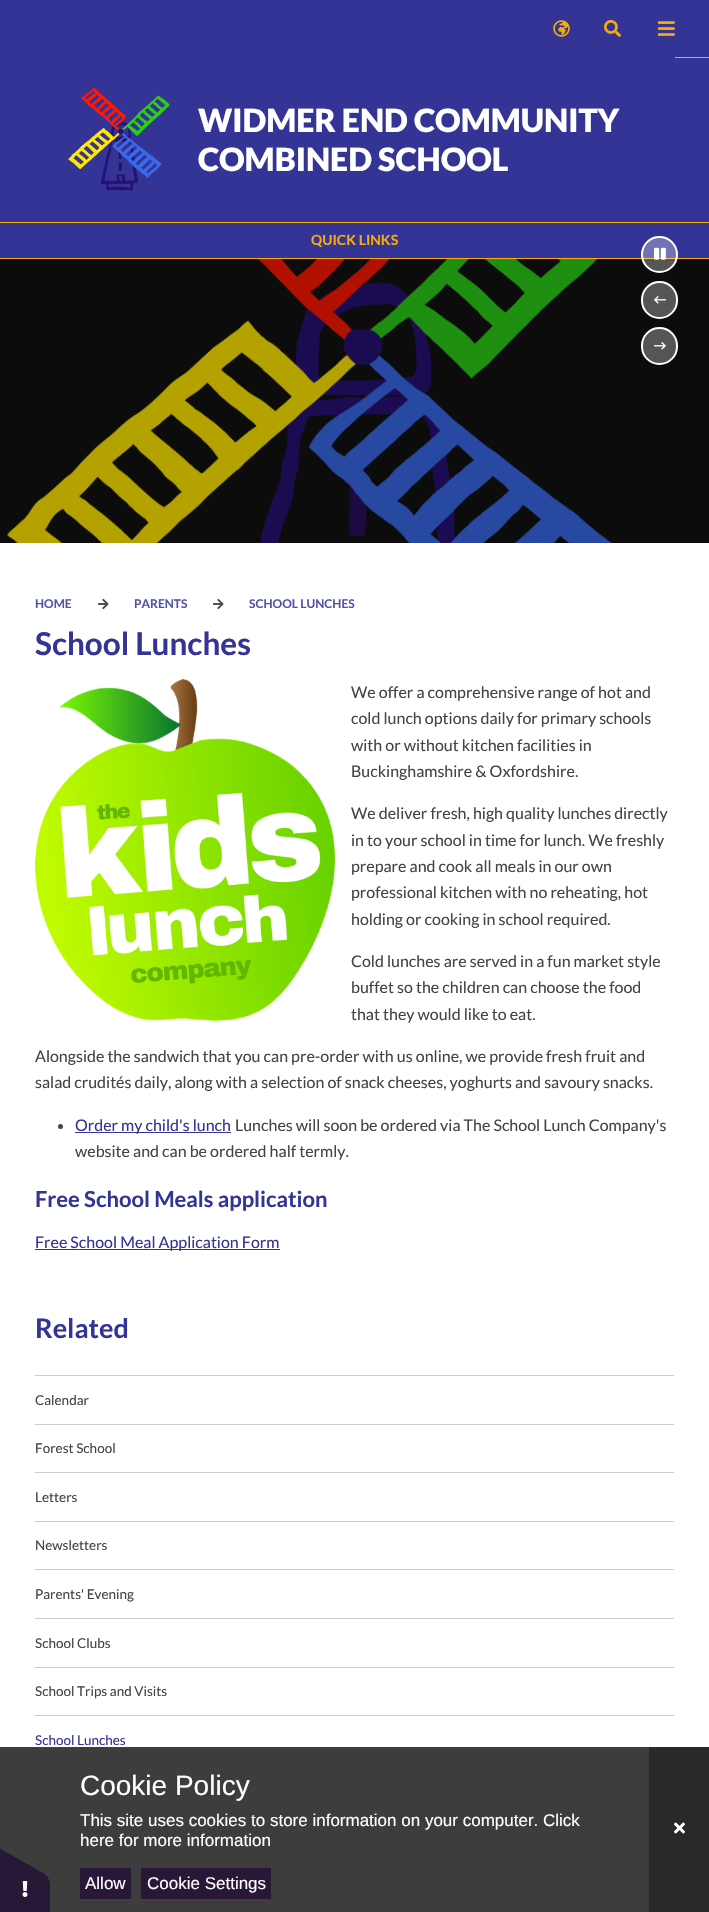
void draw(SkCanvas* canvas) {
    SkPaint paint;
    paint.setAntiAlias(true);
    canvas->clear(0xFFFFFFFF);
    paint.setColor(0xFF3D3D3D);
    canvas->drawRect(SkRect::MakeXYWH(0, 1747, 649, 165), paint);
    paint.setColor(0xFF343496);
    canvas->drawRect(SkRect::MakeXYWH(0, 0, 709, 222), paint);
    canvas->drawImageRect(SkImages::DeferredFromEncodedData(SkData::MakeFromFileName("img1.png")), SkRect::MakeXYWH(553, 20, 17, 17), SkSamplingOptions());
    paint.setColor(0xFFF8AC08);
    canvas->drawRect(SkRect::MakeXYWH(675, 57, 34, 1), paint);
    canvas->drawImageRect(SkImages::DeferredFromEncodedData(SkData::MakeFromFileName("img2.png")), SkRect::MakeXYWH(604, 20, 17, 17), SkSamplingOptions());
    canvas->drawImageRect(SkImages::DeferredFromEncodedData(SkData::MakeFromFileName("img3.png")), SkRect::MakeXYWH(658, 21, 17, 15), SkSamplingOptions());
    paint.setColor(0xFF0C0C0C);
    canvas->drawRect(SkRect::MakeXYWH(0, 259, 709, 284), paint);
    canvas->drawImageRect(SkImages::DeferredFromEncodedData(SkData::MakeFromFileName("img4.png")), SkRect::MakeXYWH(68, 87, 102, 104), SkSamplingOptions());
    SkFont font1(fontMgr->matchFamilyStyle("Lato", SkFontStyle(900, SkFontStyle::kNormal_Width, SkFontStyle::kUpright_Slant)), 32);
    font1.setSubpixel(true);
    paint.setColor(0xFFFFFFFF);
    canvas->drawString("WIDMER END COMMUNITY", 198, 132, font1, paint);
    canvas->drawString("COMBINED SCHOOL", 198, 171, font1, paint);
    paint.setColor(0xFFF8AC08);
    canvas->drawRect(SkRect::MakeXYWH(0, 222, 709, 1), paint);
    canvas->drawRect(SkRect::MakeXYWH(0, 258, 709, 1), paint);
    paint.setColor(0xFF343496);
    canvas->drawRect(SkRect::MakeXYWH(0, 223, 709, 35), paint);
    SkFont font2(fontMgr->matchFamilyStyle("Lato", SkFontStyle::Bold()), 14);
    font2.setSubpixel(true);
    paint.setColor(0xFFF8AC08);
    canvas->drawString("QUICK LINKS", 311, 245, font2, paint);
    paint.setColor(0x4DFFFFFF);
    canvas->drawCircle(659.5f, 254.5f, 17.5f, paint);
    paint.setStyle(SkPaint::kStroke_Style);
    paint.setStrokeWidth(2);
    paint.setColor(0xFFFFFFFF);
    canvas->drawCircle(659.5f, 254.5f, 17.5f, paint);
    canvas->drawImageRect(SkImages::DeferredFromEncodedData(SkData::MakeFromFileName("img5.png")), SkRect::MakeXYWH(654, 247, 12, 13), SkSamplingOptions());
    paint.setStyle(SkPaint::kFill_Style);
    paint.setColor(0xFF555555);
    canvas->drawRoundRect(SkRect::MakeXYWH(642, 282, 35, 36), 17.5f, 17.5f, paint);
    paint.setStyle(SkPaint::kStroke_Style);
    paint.setColor(0xFFFFFFFF);
    canvas->drawRoundRect(SkRect::MakeXYWH(642, 282, 35, 36), 17.5f, 17.5f, paint);
    canvas->drawImageRect(SkImages::DeferredFromEncodedData(SkData::MakeFromFileName("img6.png")), SkRect::MakeXYWH(654, 296, 12, 8), SkSamplingOptions());
    paint.setStyle(SkPaint::kFill_Style);
    paint.setColor(0xFF555555);
    canvas->drawRoundRect(SkRect::MakeXYWH(642, 328, 35, 36), 17.5f, 17.5f, paint);
    paint.setStyle(SkPaint::kStroke_Style);
    paint.setColor(0xFFFFFFFF);
    canvas->drawRoundRect(SkRect::MakeXYWH(642, 328, 35, 36), 17.5f, 17.5f, paint);
    canvas->drawImageRect(SkImages::DeferredFromEncodedData(SkData::MakeFromFileName("img7.png")), SkRect::MakeXYWH(654, 342, 12, 8), SkSamplingOptions());
    canvas->drawImageRect(SkImages::DeferredFromEncodedData(SkData::MakeFromFileName("img8.png")), SkRect::MakeXYWH(7, 259, 605, 284), SkSamplingOptions());
    SkFont font3(fontMgr->matchFamilyStyle("Lato", SkFontStyle::Bold()), 12);
    font3.setSubpixel(true);
    paint.setStyle(SkPaint::kFill_Style);
    paint.setColor(0xFF5252A6);
    canvas->drawString("HOME", 35, 608, font3, paint);
    canvas->drawImageRect(SkImages::DeferredFromEncodedData(SkData::MakeFromFileName("img9.png")), SkRect::MakeXYWH(98, 598, 11, 12), SkSamplingOptions());
    canvas->drawString("PARENTS", 134, 608, font3, paint);
    canvas->drawImageRect(SkImages::DeferredFromEncodedData(SkData::MakeFromFileName("img9.png")), SkRect::MakeXYWH(213, 598, 11, 12), SkSamplingOptions());
    canvas->drawString("SCHOOL LUNCHES", 249, 608, font3, paint);
    SkFont font4(fontMgr->matchFamilyStyle("Lato", SkFontStyle::Bold()), 31.5f);
    font4.setSubpixel(true);
    paint.setColor(0xFF343496);
    canvas->drawString("School Lunches", 35, 655, font4, paint);
    canvas->drawImageRect(SkImages::DeferredFromEncodedData(SkData::MakeFromFileName("img10.png")), SkRect::MakeXYWH(35, 679, 300, 342), SkSamplingOptions());
    SkFont font5(fontMgr->matchFamilyStyle("Lato", SkFontStyle::Normal()), 16);
    font5.setSubpixel(true);
    paint.setColor(0xFF444444);
    canvas->drawString("We offer a comprehensive range of hot and", 351, 698, font5, paint);
    canvas->drawString("cold lunch options daily for primary schools", 351, 724, font5, paint);
    canvas->drawString("with or without kitchen facilities in", 351, 751, font5, paint);
    canvas->drawString("Buckinghamshire & Oxfordshire.", 351, 777, font5, paint);
    canvas->drawString("We deliver fresh, high quality lunches directly", 351, 819, font5, paint);
    canvas->drawString("in to your school in time for lunch. We freshly", 351, 846, font5, paint);
    canvas->drawString("prepare and cook all meals in our own", 351, 872, font5, paint);
    canvas->drawString("professional kitchen with no reheating, hot", 351, 898, font5, paint);
    canvas->drawString("holding or cooking in school required.", 351, 925, font5, paint);
    canvas->drawString("Cold lunches are served in a fun market style", 351, 967, font5, paint);
    canvas->drawString("buffet so the children can choose the food", 351, 993, font5, paint);
    canvas->drawString("that they would like to eat.", 351, 1020, font5, paint);
    canvas->drawString("Alongside the sandwich that you can pre-order with us online, we provide fresh fruit and", 35, 1062, font5, paint);
    canvas->drawString("salad crudités daily, along with a selection of snack cheeses, yoghurts and savoury snacks.", 35, 1088, font5, paint);
    canvas->drawCircle(60.5f, 1126.5f, 2.5f, paint);
    paint.setColor(0xFF343496);
    canvas->drawRect(SkRect::MakeXYWH(75, 1132, 156, 1), paint);
    canvas->drawString("Order my child's lunch", 75, 1131, font5, paint);
    paint.setColor(0xFF444444);
    canvas->drawString("Lunches will soon be ordered via The School Lunch Company's", 235, 1131, font5, paint);
    canvas->drawString("website and can be ordered half termly.", 75, 1157, font5, paint);
    SkFont font6(fontMgr->matchFamilyStyle("Lato", SkFontStyle::Bold()), 22);
    font6.setSubpixel(true);
    paint.setColor(0xFF343496);
    canvas->drawString("Free School Meals application", 35, 1207, font6, paint);
    canvas->drawRect(SkRect::MakeXYWH(35, 1249, 245, 1), paint);
    canvas->drawString("Free School Meal Application Form", 35, 1248, font5, paint);
    SkFont font7(fontMgr->matchFamilyStyle("Lato", SkFontStyle::Bold()), 27);
    font7.setSubpixel(true);
    canvas->drawString("Related", 35, 1338, font7, paint);
    paint.setColor(0xFFCCCCCC);
    canvas->drawRect(SkRect::MakeXYWH(35, 1375, 639, 1), paint);
    SkFont font8(fontMgr->matchFamilyStyle("Lato", SkFontStyle::Normal()), 13.5f);
    font8.setSubpixel(true);
    paint.setColor(0xFF444444);
    canvas->drawString("Calendar", 35, 1405, font8, paint);
    paint.setColor(0xFFCCCCCC);
    canvas->drawRect(SkRect::MakeXYWH(35, 1424, 639, 1), paint);
    paint.setColor(0xFF444444);
    canvas->drawString("Forest School", 35, 1453, font8, paint);
    paint.setColor(0xFFCCCCCC);
    canvas->drawRect(SkRect::MakeXYWH(35, 1472, 639, 1), paint);
    paint.setColor(0xFF444444);
    canvas->drawString("Letters", 35, 1502, font8, paint);
    paint.setColor(0xFFCCCCCC);
    canvas->drawRect(SkRect::MakeXYWH(35, 1521, 639, 1), paint);
    paint.setColor(0xFF444444);
    canvas->drawString("Newsletters", 35, 1550, font8, paint);
    paint.setColor(0xFFCCCCCC);
    canvas->drawRect(SkRect::MakeXYWH(35, 1569, 639, 1), paint);
    paint.setColor(0xFF444444);
    canvas->drawString("Parents' Evening", 35, 1599, font8, paint);
    paint.setColor(0xFFCCCCCC);
    canvas->drawRect(SkRect::MakeXYWH(35, 1618, 639, 1), paint);
    paint.setColor(0xFF444444);
    canvas->drawString("School Clubs", 35, 1648, font8, paint);
    paint.setColor(0xFFCCCCCC);
    canvas->drawRect(SkRect::MakeXYWH(35, 1667, 639, 1), paint);
    paint.setColor(0xFF444444);
    canvas->drawString("School Trips and Visits", 35, 1696, font8, paint);
    paint.setColor(0xFFCCCCCC);
    canvas->drawRect(SkRect::MakeXYWH(35, 1715, 639, 1), paint);
    paint.setColor(0xFF343496);
    canvas->drawString("School Lunches", 35, 1745, font8, paint);
    paint.setColor(0xFF281838);
    canvas->drawPath(SkPathBuilder().moveTo(50, 1885).lineTo(50, 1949).cubicTo(50, 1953, 48, 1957, 46, 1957).lineTo(-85, 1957).cubicTo(-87, 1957, -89, 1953, -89, 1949).lineTo(-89, 1885).cubicTo(-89, 1880, -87, 1877, -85, 1877).lineTo(46, 1877).cubicTo(48, 1877, 50, 1880, 50, 1885).close().detach(), paint);
    canvas->drawPath(SkPathBuilder().moveTo(-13, 1841).lineTo(43, 1873).cubicTo(47, 1875, 49, 1878, 48, 1880).lineTo(-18, 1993).cubicTo(-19, 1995, -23, 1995, -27, 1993).lineTo(-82, 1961).cubicTo(-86, 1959, -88, 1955, -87, 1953).lineTo(-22, 1840).cubicTo(-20, 1838, -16, 1839, -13, 1841).close().detach(), paint);
    canvas->drawImageRect(SkImages::DeferredFromEncodedData(SkData::MakeFromFileName("img11.png")), SkRect::MakeXYWH(22, 1881, 6, 16), SkSamplingOptions());
    SkFont font9(fontMgr->matchFamilyStyle("Liberation Sans", SkFontStyle::Normal()), 28);
    font9.setSubpixel(true);
    paint.setColor(0xFFFFFFFF);
    canvas->drawString("Cookie Policy", 80, 1795, font9, paint);
    SkFont font10(fontMgr->matchFamilyStyle("Liberation Sans", SkFontStyle::Normal()), 17);
    font10.setSubpixel(true);
    canvas->drawString("This site uses cookies to store information on your computer. Click", 80, 1826, font10, paint);
    canvas->drawString("here for more information", 80, 1846, font10, paint);
    paint.setColor(0xFF281838);
    canvas->drawRect(SkRect::MakeXYWH(80, 1868, 51, 31), paint);
    paint.setColor(0xFFFFFFFF);
    canvas->drawString("Allow", 85, 1889, font10, paint);
    paint.setColor(0xFF281838);
    canvas->drawRect(SkRect::MakeXYWH(141, 1868, 130, 31), paint);
    paint.setColor(0xFFFFFFFF);
    canvas->drawString("Cookie Settings", 147, 1889, font10, paint);
    paint.setColor(0xFF292929);
    canvas->drawRect(SkRect::MakeXYWH(649, 1747, 60, 165), paint);
    canvas->drawImageRect(SkImages::DeferredFromEncodedData(SkData::MakeFromFileName("img12.png")), SkRect::MakeXYWH(674, 1822, 11, 12), SkSamplingOptions());
}
